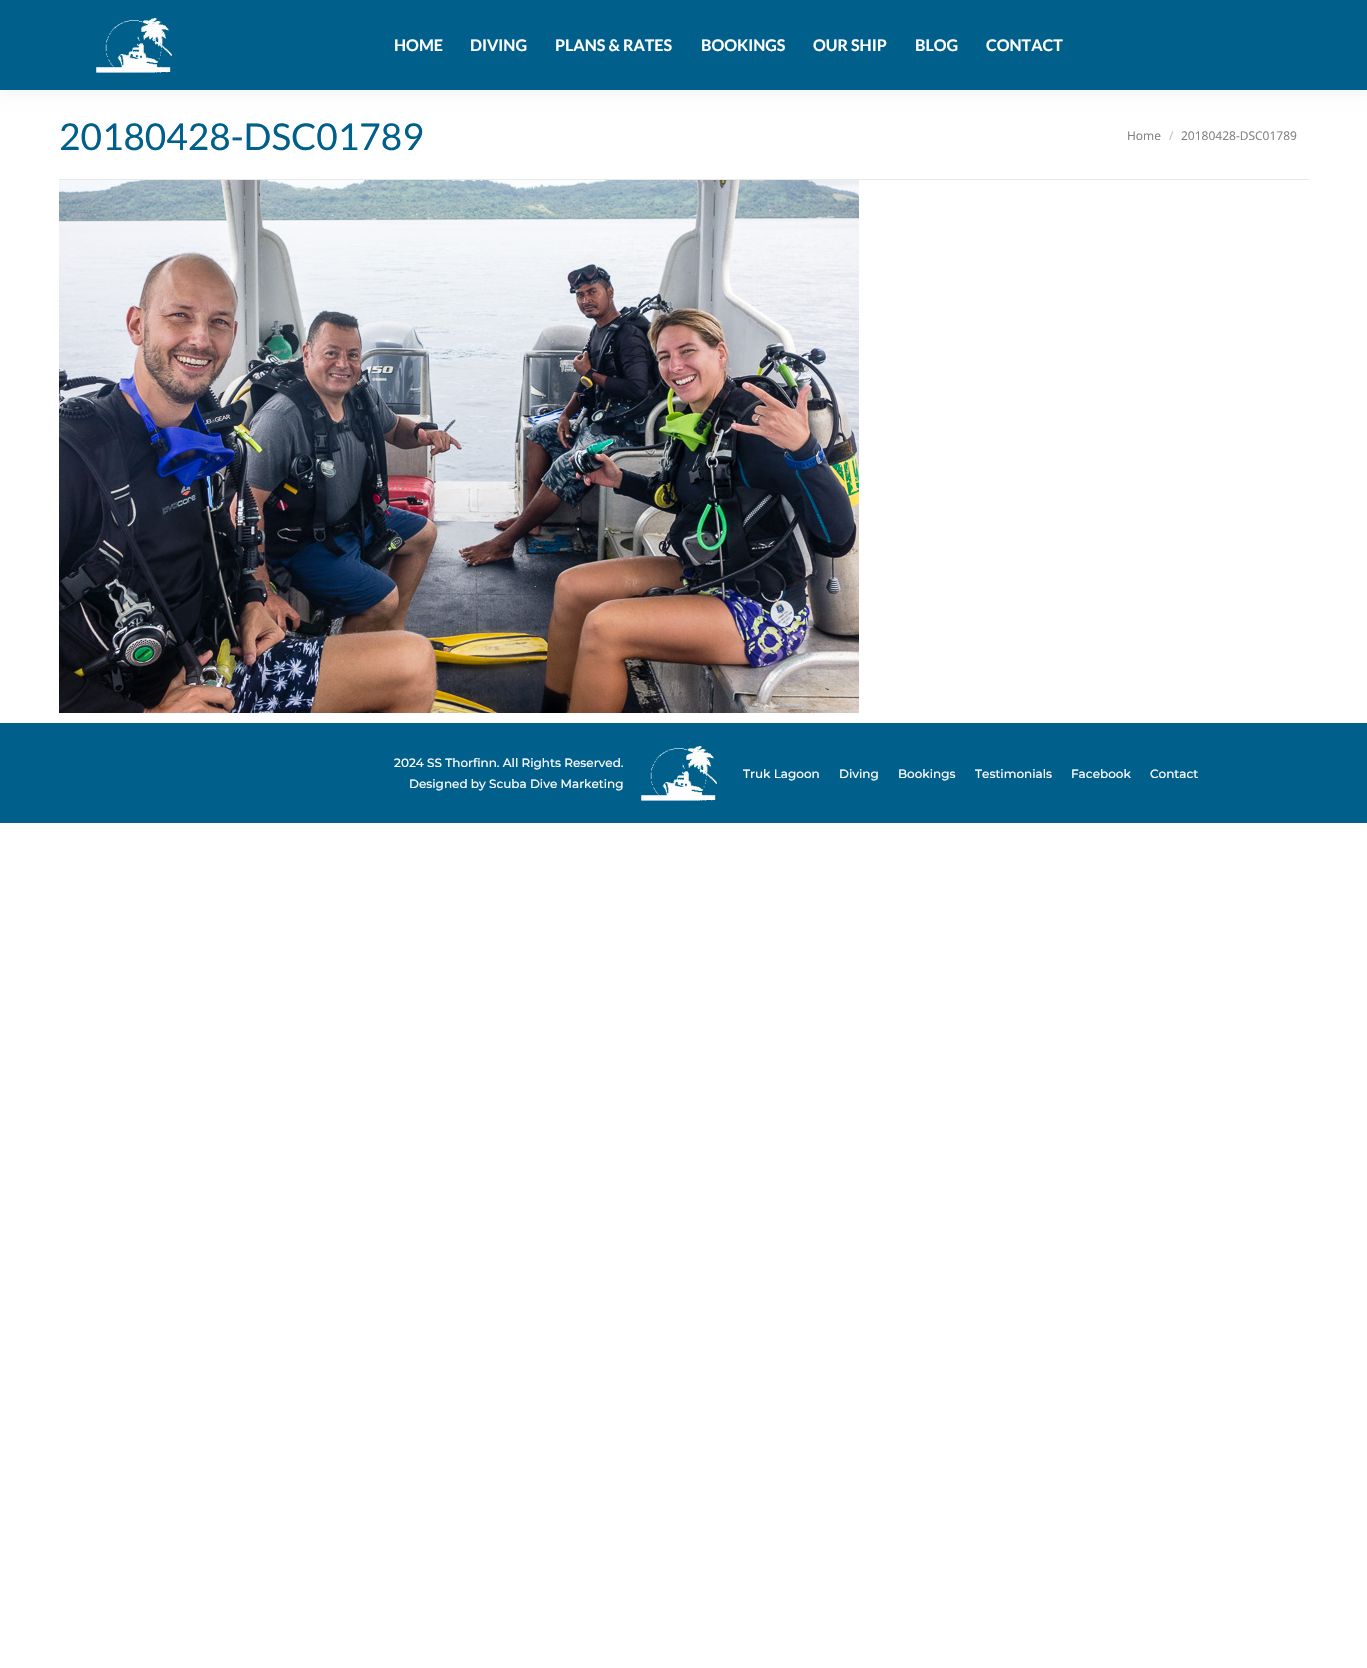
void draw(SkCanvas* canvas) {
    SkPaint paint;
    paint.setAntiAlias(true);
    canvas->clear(0xFFFFFFFF);
    paint.setColor(0x12000000);
    paint.setMaskFilter(SkMaskFilter::MakeBlur(kNormal_SkBlurStyle, 7.5f));
    canvas->drawRect(SkRect::MakeXYWH(-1, -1, 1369, 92), paint);
    paint.setMaskFilter(nullptr);
    paint.setColor(0xFF005F8B);
    canvas->drawRect(SkRect::MakeXYWH(0, 0, 1367, 90), paint);
    canvas->drawImageRect(SkImages::DeferredFromEncodedData(SkData::MakeFromFileName("img1.png")), SkRect::MakeXYWH(96, 18, 76, 55), SkSamplingOptions());
    SkFont font1(fontMgr->matchFamilyStyle("Lato", SkFontStyle::Bold()), 16);
    font1.setSubpixel(true);
    paint.setColor(0xFFFFFFFF);
    canvas->drawString("HOME", 394, 51, font1, paint);
    canvas->drawString("DIVING", 470, 51, font1, paint);
    canvas->drawString("PLANS & RATES", 555, 51, font1, paint);
    canvas->drawString("BOOKINGS", 701, 51, font1, paint);
    canvas->drawString("OUR SHIP", 813, 51, font1, paint);
    canvas->drawString("BLOG", 915, 51, font1, paint);
    canvas->drawString("CONTACT", 986, 51, font1, paint);
    SkFont font2(fontMgr->matchFamilyStyle("Lato", SkFontStyle::Normal()), 37);
    font2.setSubpixel(true);
    paint.setColor(0xFF005F8B);
    canvas->drawString("20180428-DSC01789", 59, 150, font2, paint);
    SkFont font3(fontMgr->matchFamilyStyle("Open Sans", SkFontStyle::Normal()), 12);
    font3.setSubpixel(true);
    paint.setColor(0xFF808080);
    canvas->drawString("Home", 1127, 140, font3, paint);
    paint.setColor(0xFFC0C0C0);
    canvas->drawString("/", 1169, 140, font3, paint);
    paint.setColor(0xFF808080);
    canvas->drawString("20180428-DSC01789", 1181, 140, font3, paint);
    paint.setColor(0xFFE9E9E9);
    canvas->drawRect(SkRect::MakeXYWH(59, 179, 1250, 1), paint);
    canvas->drawImageRect(SkImages::DeferredFromEncodedData(SkData::MakeFromFileName("img2.png")), SkRect::MakeXYWH(59, 180, 800, 533), SkSamplingOptions());
    paint.setColor(0xFF005F8B);
    canvas->drawRect(SkRect::MakeXYWH(0, 723, 1367, 100), paint);
    SkFont font4(fontMgr->matchFamilyStyle("Montserrat", SkFontStyle(500, SkFontStyle::kNormal_Width, SkFontStyle::kUpright_Slant)), 12);
    font4.setSubpixel(true);
    paint.setColor(0xFFFFFFFF);
    canvas->drawString("2024 SS Thorfinn. All Rights Reserved.", 394, 767, font4, paint);
    canvas->drawString("Designed by Scuba Dive Marketing", 409, 788, font4, paint);
    canvas->drawImageRect(SkImages::DeferredFromEncodedData(SkData::MakeFromFileName("img1.png")), SkRect::MakeXYWH(641, 746, 76, 55), SkSamplingOptions());
    canvas->drawString("Truk Lagoon", 743, 778, font4, paint);
    canvas->drawString("Diving", 839, 778, font4, paint);
    canvas->drawString("Bookings", 898, 778, font4, paint);
    canvas->drawString("Testimonials", 975, 778, font4, paint);
    canvas->drawString("Facebook", 1071, 778, font4, paint);
    canvas->drawString("Contact", 1150, 778, font4, paint);
}
